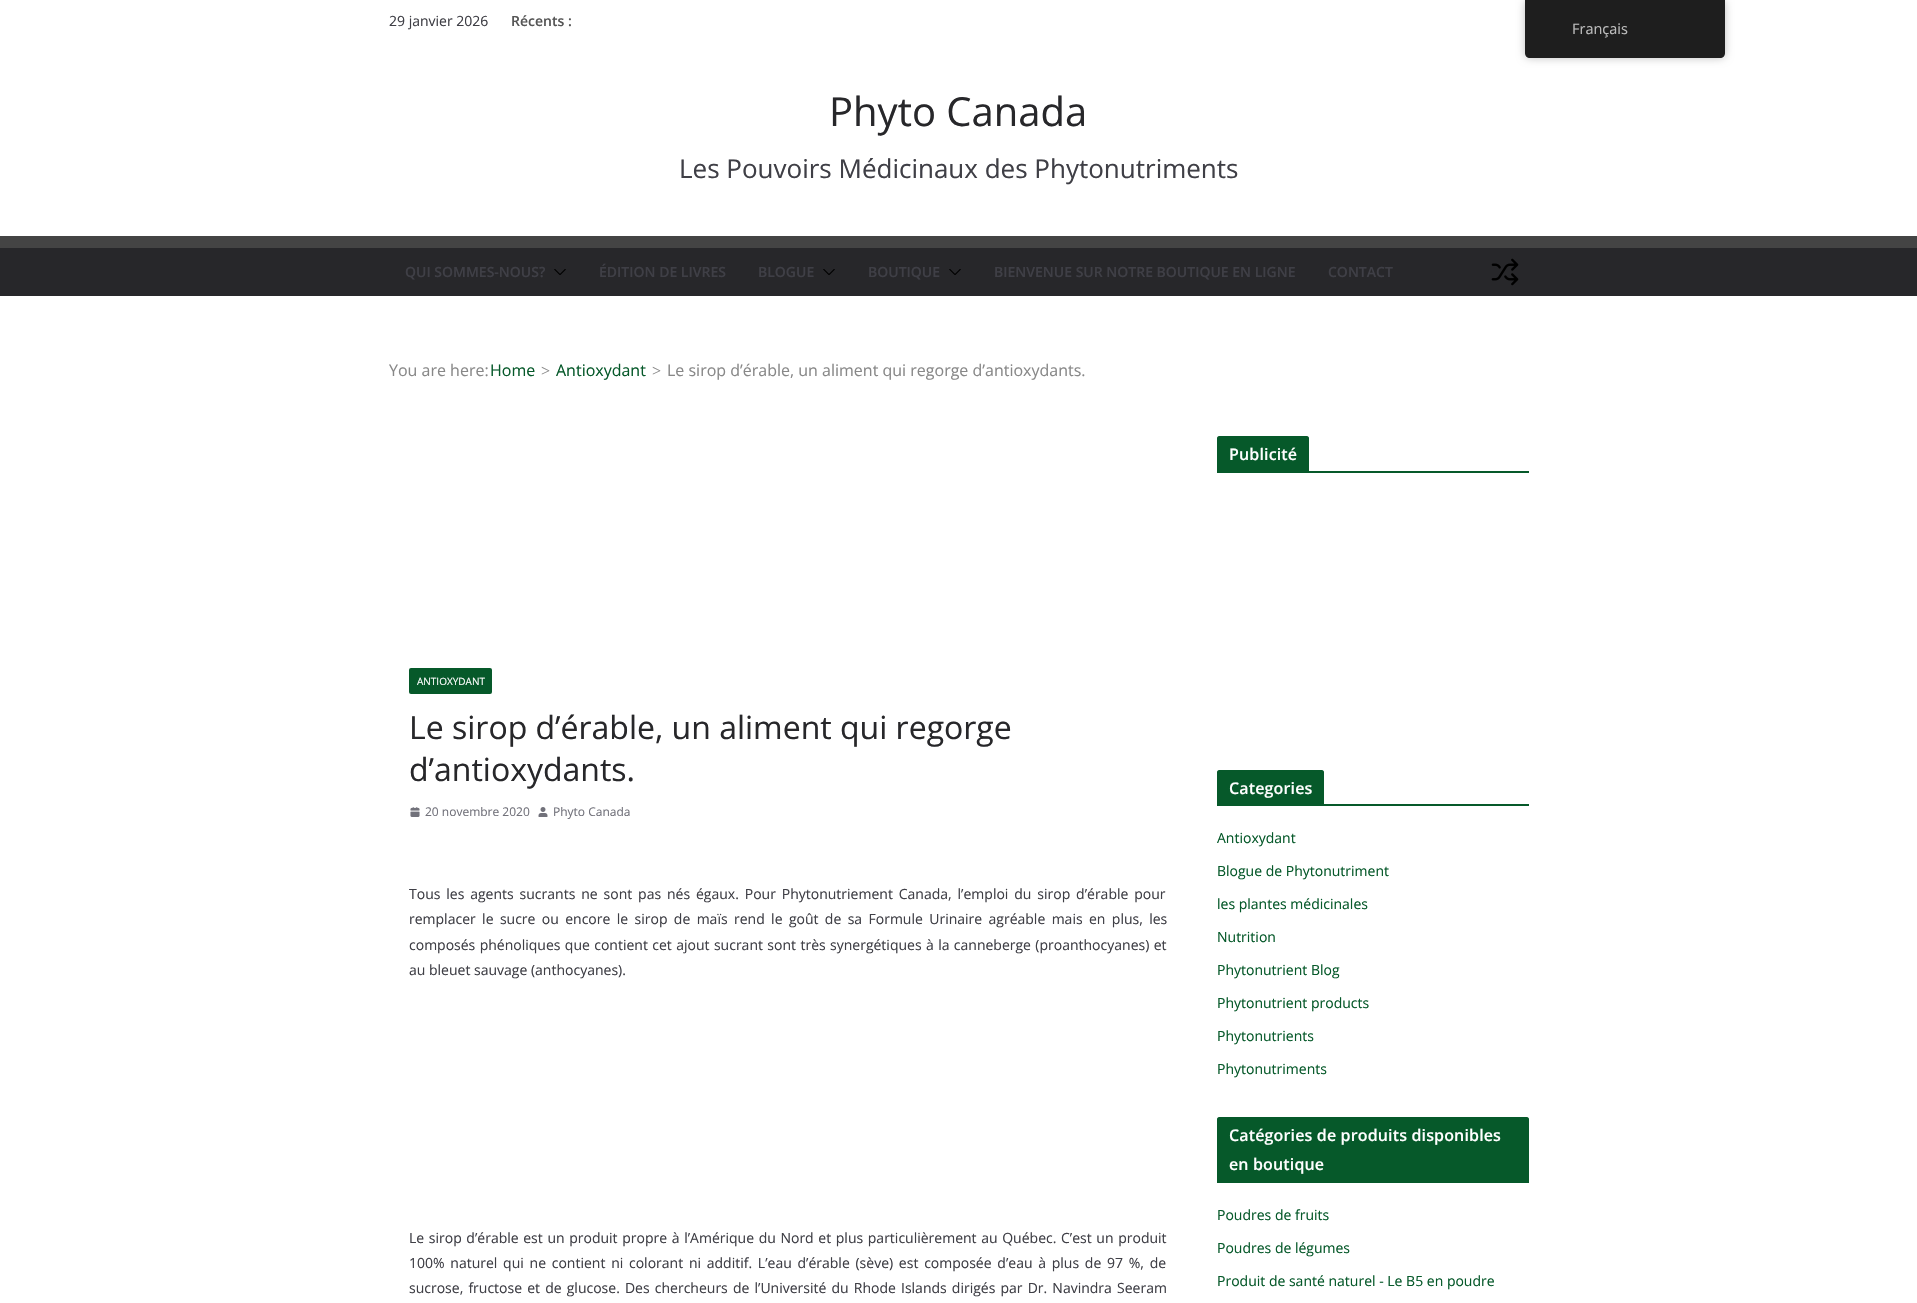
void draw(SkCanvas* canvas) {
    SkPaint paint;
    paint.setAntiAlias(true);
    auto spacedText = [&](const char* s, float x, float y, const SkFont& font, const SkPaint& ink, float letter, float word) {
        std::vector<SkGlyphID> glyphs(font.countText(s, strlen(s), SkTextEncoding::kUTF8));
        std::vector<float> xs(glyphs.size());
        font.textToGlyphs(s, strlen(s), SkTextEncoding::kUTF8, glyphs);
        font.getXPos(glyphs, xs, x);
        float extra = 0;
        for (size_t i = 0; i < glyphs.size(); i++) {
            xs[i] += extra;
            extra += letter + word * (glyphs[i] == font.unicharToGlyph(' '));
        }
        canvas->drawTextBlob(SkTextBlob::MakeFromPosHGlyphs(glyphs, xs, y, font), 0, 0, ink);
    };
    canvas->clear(0xFFFFFFFF);
    SkFont font1(fontMgr->matchFamilyStyle("Open Sans", SkFontStyle::Normal()), 14);
    font1.setSubpixel(true);
    paint.setColor(0xFF3F3F46);
    canvas->drawString("29 janvier 2026", 389, 26, font1, paint);
    SkFont font2(fontMgr->matchFamilyStyle("Open Sans", SkFontStyle(600, SkFontStyle::kNormal_Width, SkFontStyle::kUpright_Slant)), 14);
    font2.setSubpixel(true);
    paint.setColor(0xFF555555);
    canvas->drawString("Récents :", 511, 26, font2, paint);
    SkFont font3(fontMgr->matchFamilyStyle("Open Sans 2", SkFontStyle::Normal()), 40);
    font3.setSubpixel(true);
    paint.setColor(0xFF27272A);
    canvas->drawString("Phyto Canada", 829, 126, font3, paint);
    SkFont font4(fontMgr->matchFamilyStyle("Open Sans", SkFontStyle::Normal()), 26);
    font4.setSubpixel(true);
    paint.setColor(0xFF3F3F46);
    canvas->drawString("Les Pouvoirs Médicinaux des Phytonutriments", 679, 178, font4, paint);
    paint.setColor(0xFF27272A);
    canvas->drawRect(SkRect::MakeXYWH(0, 248, 1917, 48), paint);
    paint.setColor(0xFF444444);
    canvas->drawRect(SkRect::MakeXYWH(0, 236, 1917, 12), paint);
    paint.setColor(0xFF3F3F46);
    canvas->drawString("QUI SOMMES-NOUS?", 405, 277, font2, paint);
    canvas->drawImageRect(SkImages::DeferredFromEncodedData(SkData::MakeFromFileName("img1.png")), SkRect::MakeXYWH(554, 269, 12, 6), SkSamplingOptions());
    canvas->drawString("ÉDITION DE LIVRES", 599, 277, font2, paint);
    canvas->drawString("BLOGUE", 758, 277, font2, paint);
    canvas->drawImageRect(SkImages::DeferredFromEncodedData(SkData::MakeFromFileName("img1.png")), SkRect::MakeXYWH(823, 269, 12, 6), SkSamplingOptions());
    canvas->drawString("BOUTIQUE", 868, 277, font2, paint);
    canvas->drawImageRect(SkImages::DeferredFromEncodedData(SkData::MakeFromFileName("img1.png")), SkRect::MakeXYWH(949, 269, 12, 6), SkSamplingOptions());
    canvas->drawString("BIENVENUE SUR NOTRE BOUTIQUE EN LIGNE", 994, 277, font2, paint);
    canvas->drawString("CONTACT", 1328, 277, font2, paint);
    canvas->drawImageRect(SkImages::DeferredFromEncodedData(SkData::MakeFromFileName("img2.png")), SkRect::MakeXYWH(1491, 258, 28, 28), SkSamplingOptions());
    SkFont font5(fontMgr->matchFamilyStyle("Open Sans", SkFontStyle::Normal()), 16);
    font5.setSubpixel(true);
    paint.setColor(0xFF888888);
    canvas->drawString("You are here:", 389, 376, font5, paint);
    paint.setColor(0xFF06592A);
    canvas->drawString("Home", 490, 376, font5, paint);
    SkFont font6(fontMgr->matchFamilyStyle("Liberation Serif", SkFontStyle::Normal()), 16);
    font6.setSubpixel(true);
    paint.setColor(0xFF888888);
    canvas->drawString(">", 541, 376, font6, paint);
    paint.setColor(0xFF06592A);
    canvas->drawString("Antioxydant", 556, 376, font5, paint);
    paint.setColor(0xFF888888);
    canvas->drawString(">", 652, 376, font6, paint);
    canvas->drawString("Le sirop d’érable, un aliment qui regorge d’antioxydants.", 667, 376, font5, paint);
    paint.setColor(0xFF06592A);
    canvas->drawRoundRect(SkRect::MakeXYWH(409, 668, 83, 26), 2, 2, paint);
    SkFont font7(fontMgr->matchFamilyStyle("Open Sans", SkFontStyle::Normal()), 10);
    font7.setSubpixel(true);
    paint.setColor(0xFFFFFFFF);
    canvas->drawString("ANTIOXYDANT", 417, 685, font7, paint);
    SkFont font8(fontMgr->matchFamilyStyle("Open Sans 2", SkFontStyle::Normal()), 32);
    font8.setSubpixel(true);
    paint.setColor(0xFF27272A);
    canvas->drawString("Le sirop d’érable, un aliment qui regorge", 409, 739, font8, paint);
    canvas->drawString("d’antioxydants.", 409, 781, font8, paint);
    canvas->drawImageRect(SkImages::DeferredFromEncodedData(SkData::MakeFromFileName("img3.png")), SkRect::MakeXYWH(410, 807, 10, 10), SkSamplingOptions());
    SkFont font9(fontMgr->matchFamilyStyle("Open Sans", SkFontStyle::Normal()), 12);
    font9.setSubpixel(true);
    paint.setColor(0xFF71717A);
    canvas->drawString("20 novembre 2020", 425, 816, font9, paint);
    canvas->drawImageRect(SkImages::DeferredFromEncodedData(SkData::MakeFromFileName("img4.png")), SkRect::MakeXYWH(538, 807, 10, 10), SkSamplingOptions());
    canvas->drawString("Phyto Canada", 553, 816, font9, paint);
    paint.setColor(0xFF3F3F46);
    spacedText("Tous les agents sucrants ne sont pas nés égaux. Pour Phytonutriement Canada, l’emploi du sirop d’érable pour", 409, 899, font1, paint, 0, 2.25f);
    spacedText("remplacer le sucre ou encore le sirop de maïs rend le goût de sa Formule Urinaire agréable mais en plus, les", 409, 924, font1, paint, 0, 2.75f);
    spacedText("composés phénoliques que contient cet ajout sucrant sont très synergétiques à la canneberge (proanthocyanes) et", 409, 950, font1, paint, 0, 0.75f);
    canvas->drawString("au bleuet sauvage (anthocyanes).", 409, 975, font1, paint);
    spacedText("Le sirop d’érable est un produit propre à l’Amérique du Nord et plus particulièrement au Québec. C’est un produit", 409, 1243, font1, paint, 0, 1);
    spacedText("100% naturel qui ne contient ni colorant ni additif. L’eau d’érable (sève) est composée d’eau à plus de 97 %, de", 409, 1268, font1, paint, 0, 2.1f);
    spacedText("sucrose, fructose et de glucose. Des chercheurs de l’Université du Rhode Islands dirigés par Dr. Navindra Seeram", 409, 1293, font1, paint, 0, 1.5f);
    paint.setColor(0xFF06592A);
    canvas->drawRect(SkRect::MakeXYWH(1217, 471, 312, 2), paint);
    canvas->drawPath(SkPathBuilder().moveTo(1219, 436).lineTo(1307, 436).cubicTo(1308, 436, 1309, 437, 1309, 438).lineTo(1309, 471).lineTo(1217, 471).lineTo(1217, 438).cubicTo(1217, 437, 1218, 436, 1219, 436).close().detach(), paint);
    SkFont font10(fontMgr->matchFamilyStyle("Open Sans", SkFontStyle(600, SkFontStyle::kNormal_Width, SkFontStyle::kUpright_Slant)), 16);
    font10.setSubpixel(true);
    paint.setColor(0xFFFFFFFF);
    spacedText("Publicité", 1229, 460, font10, paint, 0.15f, 0);
    paint.setColor(0xFF06592A);
    canvas->drawRect(SkRect::MakeXYWH(1217, 804, 312, 2), paint);
    canvas->drawPath(SkPathBuilder().moveTo(1219, 770).lineTo(1322, 770).cubicTo(1323, 770, 1324, 771, 1324, 772).lineTo(1324, 804).lineTo(1217, 804).lineTo(1217, 772).cubicTo(1217, 771, 1218, 770, 1219, 770).close().detach(), paint);
    paint.setColor(0xFFFFFFFF);
    spacedText("Categories", 1229, 794, font10, paint, 0.15f, 0);
    paint.setColor(0xFF06592A);
    canvas->drawString("Antioxydant", 1217, 843, font1, paint);
    canvas->drawString("Blogue de Phytonutriment", 1217, 876, font1, paint);
    canvas->drawString("les plantes médicinales", 1217, 909, font1, paint);
    canvas->drawString("Nutrition", 1217, 942, font1, paint);
    canvas->drawString("Phytonutrient Blog", 1217, 975, font1, paint);
    canvas->drawString("Phytonutrient products", 1217, 1008, font1, paint);
    canvas->drawString("Phytonutrients", 1217, 1041, font1, paint);
    canvas->drawString("Phytonutriments", 1217, 1074, font1, paint);
    canvas->drawRect(SkRect::MakeXYWH(1217, 1181, 312, 2), paint);
    canvas->drawPath(SkPathBuilder().moveTo(1219, 1117).lineTo(1527, 1117).cubicTo(1528, 1117, 1529, 1118, 1529, 1119).lineTo(1529, 1181).lineTo(1217, 1181).lineTo(1217, 1119).cubicTo(1217, 1118, 1218, 1117, 1219, 1117).close().detach(), paint);
    paint.setColor(0xFFFFFFFF);
    spacedText("Catégories de produits disponibles", 1229, 1141, font10, paint, 0.15f, 0);
    spacedText("en boutique", 1229, 1170, font10, paint, 0.15f, 0);
    paint.setColor(0xFF06592A);
    canvas->drawString("Poudres de fruits", 1217, 1220, font1, paint);
    canvas->drawString("Poudres de légumes", 1217, 1253, font1, paint);
    canvas->drawString("Produit de santé naturel - Le B5 en poudre", 1217, 1286, font1, paint);
    paint.setColor(0x40000000);
    paint.setMaskFilter(SkMaskFilter::MakeBlur(kNormal_SkBlurStyle, 4));
    canvas->drawRoundRect(SkRect::MakeXYWH(1525, 0, 200, 58), 5, 5, paint);
    paint.setMaskFilter(nullptr);
    paint.setColor(0xFF1E1E1E);
    canvas->drawPath(SkPathBuilder().moveTo(1525, 0).lineTo(1725, 0).lineTo(1725, 53).cubicTo(1725, 56, 1723, 58, 1720, 58).lineTo(1530, 58).cubicTo(1527, 58, 1525, 56, 1525, 53).close().detach(), paint);
    SkFont font11(fontMgr->matchFamilyStyle("Open Sans", SkFontStyle::Normal()), 14.5f);
    font11.setSubpixel(true);
    paint.setColor(0xFFBDBDBD);
    canvas->drawString("Français", 1572, 34, font11, paint);
}
